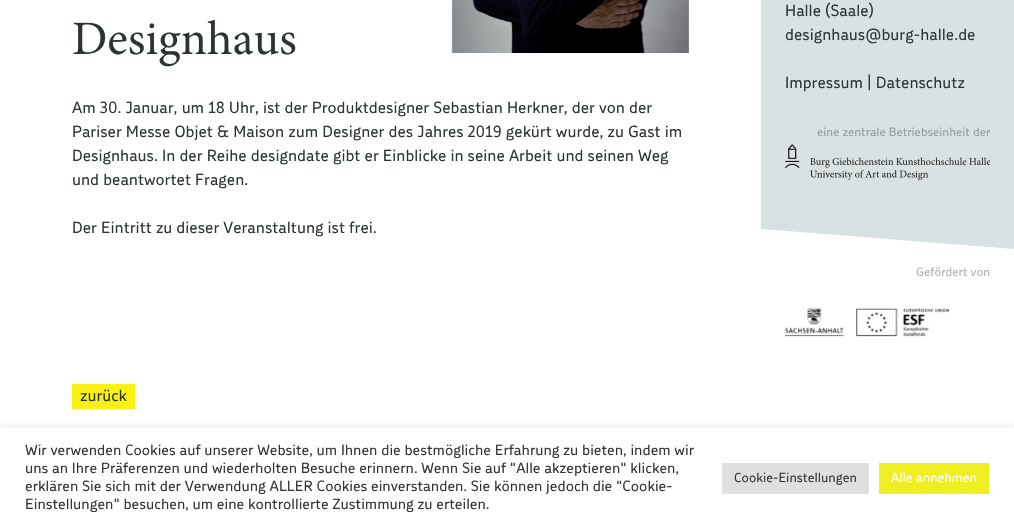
void draw(SkCanvas* canvas) {
    SkPaint paint;
    paint.setAntiAlias(true);
    canvas->clear(0xFFFFFFFF);
    canvas->drawImageRect(SkImages::DeferredFromEncodedData(SkData::MakeFromFileName("img1.png")), SkRect::MakeXYWH(73, 19, 223, 48), SkSamplingOptions());
    canvas->drawImageRect(SkImages::DeferredFromEncodedData(SkData::MakeFromFileName("img2.png")), SkRect::MakeXYWH(451, 0, 238, 53), SkSamplingOptions());
    SkFont font1(fontMgr->matchFamilyStyle("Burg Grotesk", SkFontStyle::Normal()), 16);
    font1.setSubpixel(true);
    paint.setColor(0xFF2A3432);
    canvas->drawString("Am 30. Januar, um 18 Uhr, ist der Produktdesigner Sebastian Herkner, der von der", 72, 113, font1, paint);
    canvas->drawString("Pariser Messe Objet & Maison zum Designer des Jahres 2019 gekürt wurde, zu Gast im", 72, 137, font1, paint);
    canvas->drawString("Designhaus. In der Reihe designdate gibt er Einblicke in seine Arbeit und seinen Weg", 72, 161, font1, paint);
    canvas->drawString("und beantwortet Fragen.", 72, 185, font1, paint);
    canvas->drawString("Der Eintritt zu dieser Veranstaltung ist frei.", 72, 233, font1, paint);
    paint.setColor(0xFFFAF014);
    canvas->drawRect(SkRect::MakeXYWH(72, 384, 63, 25), paint);
    paint.setColor(0xFF2A3432);
    canvas->drawString("zurück", 80, 401, font1, paint);
    paint.setColor(0xFFD9E2E2);
    canvas->drawPath(SkPathBuilder().moveTo(761, -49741).lineTo(1014, -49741).lineTo(1014, 249).lineTo(761, 229).close().detach(), paint);
    paint.setColor(0xFF2A3432);
    canvas->drawString("Halle (Saale)", 785, 16, font1, paint);
    canvas->drawString("designhaus@burg-halle.de", 785, 40, font1, paint);
    canvas->drawString("Impressum | Datenschutz", 785, 88, font1, paint);
    SkFont font2(fontMgr->matchFamilyStyle("Burg Grotesk", SkFontStyle::Normal()), 12);
    font2.setSubpixel(true);
    paint.setColor(0xFF939C9C);
    canvas->drawString("eine zentrale Betriebseinheit der", 817, 136, font2, paint);
    canvas->drawImageRect(SkImages::DeferredFromEncodedData(SkData::MakeFromFileName("img3.png")), SkRect::MakeXYWH(785, 144, 205, 36), SkSamplingOptions());
    paint.setColor(0xFFAAAEAD);
    canvas->drawString("Gefördert von", 916, 276, font2, paint);
    canvas->drawImageRect(SkImages::DeferredFromEncodedData(SkData::MakeFromFileName("img4.png")), SkRect::MakeXYWH(784, 308, 165, 29), SkSamplingOptions());
    canvas->save();
    canvas->clipRect(SkRect::MakeXYWH(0, 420, 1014, 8));
    paint.setColor(0x4DACABAB);
    paint.setMaskFilter(SkMaskFilter::MakeBlur(kNormal_SkBlurStyle, 5));
    canvas->drawRect(SkRect::MakeXYWH(0, 427, 1014, 100), paint);
    paint.setMaskFilter(nullptr);
    canvas->restore();
    SkFont font3(fontMgr->matchFamilyStyle("Burg Grotesk", SkFontStyle::Normal()), 14.65f);
    font3.setSubpixel(true);
    paint.setColor(0xFF333333);
    canvas->drawString("Wir verwenden Cookies auf unserer Website, um Ihnen die bestmögliche Erfahrung zu bieten, indem wir", 25, 455, font3, paint);
    canvas->drawString("uns an Ihre Präferenzen und wiederholten Besuche erinnern. Wenn Sie auf \"Alle akzeptieren\" klicken,", 25, 473, font3, paint);
    canvas->drawString("erklären Sie sich mit der Verwendung ALLER Cookies einverstanden. Sie können jedoch die \"Cookie-", 25, 491, font3, paint);
    canvas->drawString("Einstellungen\" besuchen, um eine kontrollierte Zustimmung zu erteilen.", 25, 509, font3, paint);
    paint.setColor(0xFFDEDFE0);
    canvas->drawRect(SkRect::MakeXYWH(722, 463, 147, 31), paint);
    SkFont font4(fontMgr->matchFamilyStyle("Burg Grotesk", SkFontStyle::Normal()), 13);
    font4.setSubpixel(true);
    paint.setColor(0xFF333333);
    canvas->drawString("Cookie-Einstellungen", 734, 482, font4, paint);
    paint.setColor(0xFFEEEE22);
    canvas->drawRect(SkRect::MakeXYWH(879, 463, 110, 31), paint);
    paint.setColor(0xFFFFFFFF);
    canvas->drawString("Alle annehmen", 891, 482, font4, paint);
}
